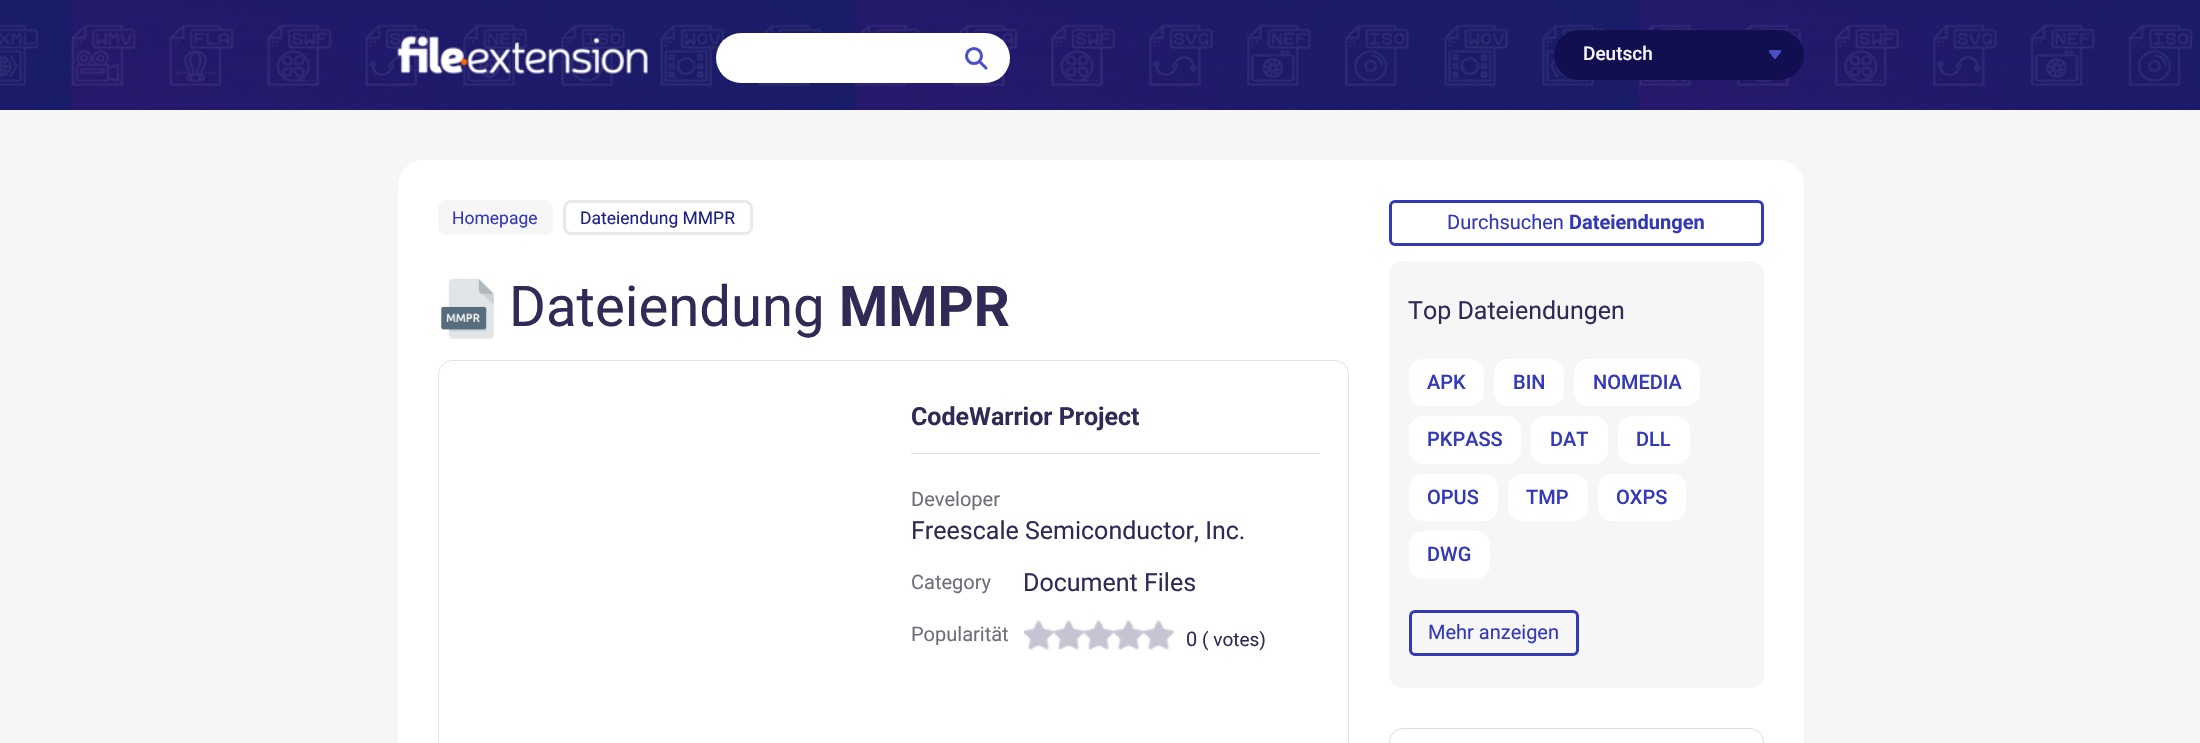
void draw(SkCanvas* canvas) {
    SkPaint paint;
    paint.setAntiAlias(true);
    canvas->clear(0xFFF6F6F6);
    canvas->drawImageRect(SkImages::DeferredFromEncodedData(SkData::MakeFromFileName("img1.png")), SkRect::MakeXYWH(0, 0, 2200, 110), SkSamplingOptions());
    canvas->drawImageRect(SkImages::DeferredFromEncodedData(SkData::MakeFromFileName("img2.png")), SkRect::MakeXYWH(397, 36, 251, 38), SkSamplingOptions());
    paint.setColor(0xFFFFFFFF);
    canvas->drawRoundRect(SkRect::MakeXYWH(716, 33, 294, 50), 25, 25, paint);
    paint.setStyle(SkPaint::kStroke_Style);
    paint.setStrokeWidth(3.1f);
    paint.setColor(0xFF4B51C6);
    canvas->drawCircle(974, 56, 7.5f, paint);
    paint.setStrokeCap(SkPaint::kRound_Cap);
    paint.setStrokeJoin(SkPaint::kRound_Join);
    canvas->drawPath(SkPathBuilder().moveTo(979.5f, 61.5f).lineTo(986, 68).detach(), paint);
    paint.setStyle(SkPaint::kFill_Style);
    paint.setColor(0xFF110F50);
    canvas->drawRoundRect(SkRect::MakeXYWH(1554, 30, 250, 50), 25, 25, paint);
    SkFont font1(fontMgr->matchFamilyStyle("Roboto", SkFontStyle(500, SkFontStyle::kNormal_Width, SkFontStyle::kUpright_Slant)), 19);
    font1.setSubpixel(true);
    paint.setColor(0xFFF6F6F6);
    canvas->drawString("Deutsch", 1583, 60, font1, paint);
    canvas->drawImageRect(SkImages::DeferredFromEncodedData(SkData::MakeFromFileName("img3.png")), SkRect::MakeXYWH(1769, 50, 12, 9), SkSamplingOptions());
    paint.setColor(0xFFFFFFFF);
    canvas->drawRoundRect(SkRect::MakeXYWH(398, 160, 1406, 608), 25, 25, paint);
    paint.setColor(0xFFF6F6F6);
    canvas->drawRoundRect(SkRect::MakeXYWH(438, 200, 115, 35), 8, 8, paint);
    SkFont font2(fontMgr->matchFamilyStyle("Roboto", SkFontStyle::Normal()), 17.5f);
    font2.setSubpixel(true);
    paint.setColor(0xFF3339B7);
    canvas->drawString("Homepage", 452, 224, font2, paint);
    paint.setStyle(SkPaint::kStroke_Style);
    paint.setStrokeWidth(3);
    paint.setStrokeCap(SkPaint::kButt_Cap);
    paint.setStrokeJoin(SkPaint::kMiter_Join);
    paint.setColor(0xFFE9E9E9);
    canvas->drawRoundRect(SkRect::MakeXYWH(564.5f, 201.5f, 187, 32), 6.5f, 6.5f, paint);
    paint.setStyle(SkPaint::kFill_Style);
    paint.setColor(0xFF1A1F8A);
    canvas->drawString("Dateiendung MMPR", 580, 224, font2, paint);
    canvas->drawImageRect(SkImages::DeferredFromEncodedData(SkData::MakeFromFileName("img4.png")), SkRect::MakeXYWH(441, 278, 53, 61), SkSamplingOptions());
    SkFont font3(fontMgr->matchFamilyStyle("Roboto", SkFontStyle::Normal()), 56.25f);
    font3.setSubpixel(true);
    paint.setColor(0xFF2F2B56);
    canvas->drawString("Dateiendung", 509, 326, font3, paint);
    SkFont font4(fontMgr->matchFamilyStyle("Roboto", SkFontStyle::Bold()), 56.25f);
    font4.setSubpixel(true);
    canvas->drawString("MMPR", 839, 326, font4, paint);
    paint.setStyle(SkPaint::kStroke_Style);
    paint.setStrokeWidth(1);
    paint.setColor(0xFFE2E2E2);
    canvas->drawRoundRect(SkRect::MakeXYWH(438.5f, 360.5f, 910, 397), 13.5f, 13.5f, paint);
    SkFont font5(fontMgr->matchFamilyStyle("Roboto", SkFontStyle::Bold()), 25);
    font5.setSubpixel(true);
    paint.setStyle(SkPaint::kFill_Style);
    paint.setColor(0xFF2F2B56);
    canvas->drawString("CodeWarrior Project", 911, 425, font5, paint);
    paint.setColor(0xFFE2E2E2);
    canvas->drawRect(SkRect::MakeXYWH(911, 453, 409, 1), paint);
    SkFont font6(fontMgr->matchFamilyStyle("Roboto", SkFontStyle::Normal()), 20);
    font6.setSubpixel(true);
    paint.setColor(0xFF716D7B);
    canvas->drawString("Developer", 911, 506, font6, paint);
    SkFont font7(fontMgr->matchFamilyStyle("Roboto", SkFontStyle::Normal()), 25);
    font7.setSubpixel(true);
    paint.setColor(0xFF2F2B56);
    canvas->drawString("Freescale Semiconductor, Inc.", 911, 539, font7, paint);
    paint.setColor(0xFF716D7B);
    canvas->drawString("Category", 911, 589, font6, paint);
    paint.setColor(0xFF2F2B56);
    canvas->drawString("Document Files", 1023, 591, font7, paint);
    paint.setColor(0xFF716D7B);
    canvas->drawString("Popularität", 911, 641, font6, paint);
    canvas->drawImageRect(SkImages::DeferredFromEncodedData(SkData::MakeFromFileName("img5.png")), SkRect::MakeXYWH(1024, 620, 150, 30), SkSamplingOptions());
    paint.setColor(0xFF2F2B56);
    canvas->drawString("0", 1186, 646, font6, paint);
    SkFont font8(fontMgr->matchFamilyStyle("Roboto", SkFontStyle::Normal()), 19);
    font8.setSubpixel(true);
    canvas->drawString("( votes)", 1202, 646, font8, paint);
    paint.setStyle(SkPaint::kStroke_Style);
    paint.setStrokeWidth(3);
    paint.setColor(0xFF3339B7);
    canvas->drawRoundRect(SkRect::MakeXYWH(1390.5f, 201.5f, 372, 43), 4.5f, 4.5f, paint);
    paint.setStyle(SkPaint::kFill_Style);
    canvas->drawString("Durchsuchen", 1447, 229, font6, paint);
    SkFont font9(fontMgr->matchFamilyStyle("Roboto", SkFontStyle::Bold()), 20);
    font9.setSubpixel(true);
    canvas->drawString("Dateiendungen", 1569, 229, font9, paint);
    paint.setColor(0xFFF6F6F6);
    canvas->drawRoundRect(SkRect::MakeXYWH(1389, 261, 375, 427), 14, 14, paint);
    paint.setColor(0xFF2F2B56);
    canvas->drawString("Top Dateiendungen", 1408, 319, font7, paint);
    paint.setColor(0xFFFFFFFF);
    canvas->drawRoundRect(SkRect::MakeXYWH(1409, 359, 75, 47), 14, 14, paint);
    SkFont font10(fontMgr->matchFamilyStyle("Roboto", SkFontStyle(500, SkFontStyle::kNormal_Width, SkFontStyle::kUpright_Slant)), 20);
    font10.setSubpixel(true);
    paint.setColor(0xFF3339B7);
    canvas->drawString("APK", 1427, 389, font10, paint);
    paint.setColor(0xFFFFFFFF);
    canvas->drawRoundRect(SkRect::MakeXYWH(1494, 359, 70, 47), 14, 14, paint);
    paint.setColor(0xFF3339B7);
    canvas->drawString("BIN", 1513, 389, font10, paint);
    paint.setColor(0xFFFFFFFF);
    canvas->drawRoundRect(SkRect::MakeXYWH(1574, 359, 126, 47), 14, 14, paint);
    paint.setColor(0xFF3339B7);
    canvas->drawString("NOMEDIA", 1593, 389, font10, paint);
    paint.setColor(0xFFFFFFFF);
    canvas->drawRoundRect(SkRect::MakeXYWH(1409, 416, 112, 48), 14, 14, paint);
    paint.setColor(0xFF3339B7);
    canvas->drawString("PKPASS", 1427, 446, font10, paint);
    paint.setColor(0xFFFFFFFF);
    canvas->drawRoundRect(SkRect::MakeXYWH(1531, 416, 77, 48), 14, 14, paint);
    paint.setColor(0xFF3339B7);
    canvas->drawString("DAT", 1550, 446, font10, paint);
    paint.setColor(0xFFFFFFFF);
    canvas->drawRoundRect(SkRect::MakeXYWH(1618, 416, 72, 48), 14, 14, paint);
    paint.setColor(0xFF3339B7);
    canvas->drawString("DLL", 1636, 446, font10, paint);
    paint.setColor(0xFFFFFFFF);
    canvas->drawRoundRect(SkRect::MakeXYWH(1409, 474, 89, 47), 14, 14, paint);
    paint.setColor(0xFF3339B7);
    canvas->drawString("OPUS", 1427, 504, font10, paint);
    paint.setColor(0xFFFFFFFF);
    canvas->drawRoundRect(SkRect::MakeXYWH(1508, 474, 80, 47), 14, 14, paint);
    paint.setColor(0xFF3339B7);
    canvas->drawString("TMP", 1526, 504, font10, paint);
    paint.setColor(0xFFFFFFFF);
    canvas->drawRoundRect(SkRect::MakeXYWH(1598, 474, 88, 47), 14, 14, paint);
    paint.setColor(0xFF3339B7);
    canvas->drawString("OXPS", 1616, 504, font10, paint);
    paint.setColor(0xFFFFFFFF);
    canvas->drawRoundRect(SkRect::MakeXYWH(1409, 531, 81, 48), 14, 14, paint);
    paint.setColor(0xFF3339B7);
    canvas->drawString("DWG", 1427, 561, font10, paint);
    paint.setStyle(SkPaint::kStroke_Style);
    canvas->drawRoundRect(SkRect::MakeXYWH(1410.5f, 611.5f, 167, 43), 4.5f, 4.5f, paint);
    paint.setStyle(SkPaint::kFill_Style);
    canvas->drawString("Mehr anzeigen", 1428, 639, font6, paint);
    paint.setStyle(SkPaint::kStroke_Style);
    paint.setStrokeWidth(1);
    paint.setColor(0xFFDDDDDD);
    canvas->drawRoundRect(SkRect::MakeXYWH(1389.5f, 728.5f, 374, 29), 13.5f, 13.5f, paint);
}
